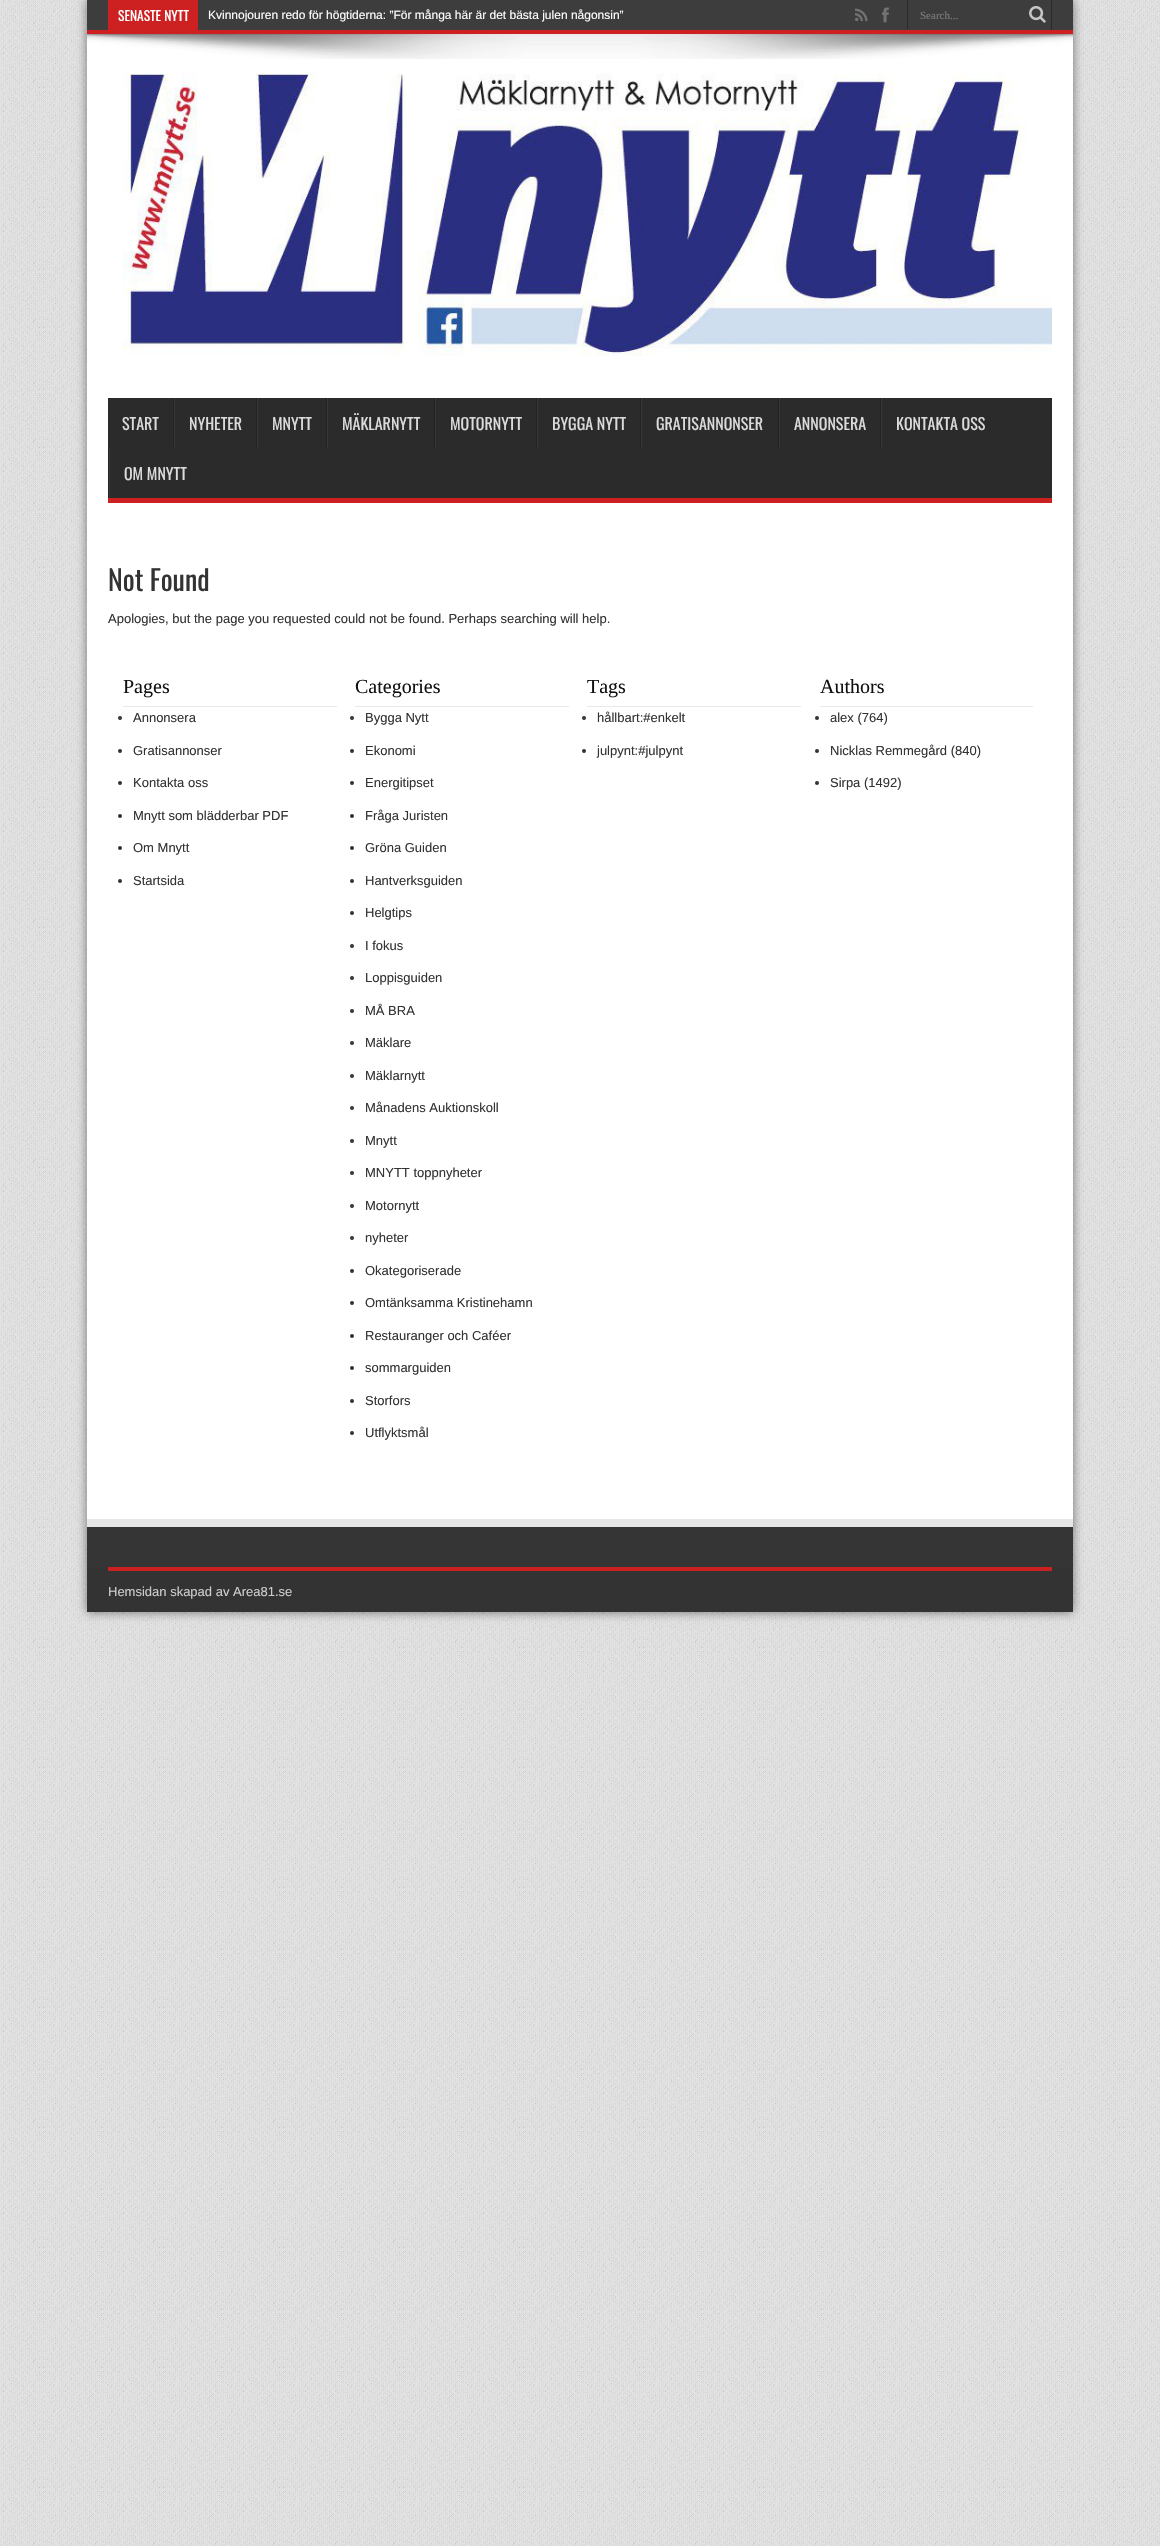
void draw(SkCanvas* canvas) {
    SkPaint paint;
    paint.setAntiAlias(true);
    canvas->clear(0xFFE3E3E3);
    canvas->drawImageRect(SkImages::DeferredFromEncodedData(SkData::MakeFromFileName("img1.png")), SkRect::MakeXYWH(0, 0, 1160, 2546), SkSamplingOptions());
    paint.setColor(0x80000000);
    paint.setMaskFilter(SkMaskFilter::MakeBlur(kNormal_SkBlurStyle, 5));
    canvas->drawRect(SkRect::MakeXYWH(87, 0, 986, 1612), paint);
    paint.setMaskFilter(nullptr);
    paint.setColor(0xFFFFFFFF);
    canvas->drawRect(SkRect::MakeXYWH(87, 34, 986, 1485), paint);
    paint.setColor(0xFF3D3D3D);
    canvas->drawRect(SkRect::MakeXYWH(87, 0, 986, 30), paint);
    paint.setColor(0xFFCD2121);
    canvas->drawRect(SkRect::MakeXYWH(87, 30, 986, 4), paint);
    canvas->drawRect(SkRect::MakeXYWH(108, 0, 90, 30), paint);
    SkFont font1(fontMgr->matchFamilyStyle("Oswald", SkFontStyle::Normal()), 13.5f);
    font1.setSubpixel(true);
    paint.setColor(0xFFFFFFFF);
    canvas->drawString("SENASTE NYTT", 118, 21, font1, paint);
    SkFont font2(fontMgr->matchFamilyStyle("Liberation Sans", SkFontStyle::Normal()), 12);
    font2.setSubpixel(true);
    canvas->drawString("Kvinnojouren redo för högtiderna: ”För många här är det bästa julen någonsin”", 208, 19, font2, paint);
    canvas->drawImageRect(SkImages::DeferredFromEncodedData(SkData::MakeFromFileName("img2.png")), SkRect::MakeXYWH(855, 8, 13, 14), SkSamplingOptions());
    canvas->drawImageRect(SkImages::DeferredFromEncodedData(SkData::MakeFromFileName("img3.png")), SkRect::MakeXYWH(882, 7, 7, 16), SkSamplingOptions());
    paint.setColor(0xFF2A2A2A);
    canvas->drawRect(SkRect::MakeXYWH(907, 0, 1, 29), paint);
    SkFont font3(fontMgr->matchFamilyStyle("Liberation Serif", SkFontStyle::Normal()), 11);
    font3.setSubpixel(true);
    paint.setColor(0xFF7D7D7D);
    canvas->drawString("Search...", 920, 19, font3, paint);
    paint.setColor(0xFF2A2A2A);
    canvas->drawRect(SkRect::MakeXYWH(1051, 0, 1, 30), paint);
    canvas->drawImageRect(SkImages::DeferredFromEncodedData(SkData::MakeFromFileName("img4.png")), SkRect::MakeXYWH(1029, 6, 17, 17), SkSamplingOptions());
    canvas->drawImageRect(SkImages::DeferredFromEncodedData(SkData::MakeFromFileName("img5.png")), SkRect::MakeXYWH(87, 34, 986, 25), SkSamplingOptions());
    canvas->drawImageRect(SkImages::DeferredFromEncodedData(SkData::MakeFromFileName("img6.png")), SkRect::MakeXYWH(122, 59, 930, 297), SkSamplingOptions());
    paint.setColor(0xFF2B2B2B);
    canvas->drawRect(SkRect::MakeXYWH(108, 398, 944, 100), paint);
    paint.setColor(0xFFCD2121);
    canvas->drawRect(SkRect::MakeXYWH(108, 498, 944, 5), paint);
    SkFont font4(fontMgr->matchFamilyStyle("Oswald", SkFontStyle::Normal()), 16);
    font4.setSubpixel(true);
    paint.setColor(0xFFDBDBDB);
    canvas->drawString("START", 122, 430, font4, paint);
    paint.setColor(0xFF222222);
    canvas->drawRect(SkRect::MakeXYWH(173, 398, 1, 50), paint);
    paint.setColor(0xFF383838);
    canvas->drawRect(SkRect::MakeXYWH(174, 398, 1, 50), paint);
    paint.setColor(0xFFDBDBDB);
    canvas->drawString("NYHETER", 189, 430, font4, paint);
    paint.setColor(0xFF222222);
    canvas->drawRect(SkRect::MakeXYWH(256, 398, 1, 50), paint);
    paint.setColor(0xFF383838);
    canvas->drawRect(SkRect::MakeXYWH(257, 398, 1, 50), paint);
    paint.setColor(0xFFDBDBDB);
    canvas->drawString("MNYTT", 272, 430, font4, paint);
    paint.setColor(0xFF222222);
    canvas->drawRect(SkRect::MakeXYWH(326, 398, 1, 50), paint);
    paint.setColor(0xFF383838);
    canvas->drawRect(SkRect::MakeXYWH(327, 398, 1, 50), paint);
    paint.setColor(0xFFDBDBDB);
    canvas->drawString("MÄKLARNYTT", 342, 430, font4, paint);
    paint.setColor(0xFF222222);
    canvas->drawRect(SkRect::MakeXYWH(434, 398, 1, 50), paint);
    paint.setColor(0xFF383838);
    canvas->drawRect(SkRect::MakeXYWH(435, 398, 1, 50), paint);
    paint.setColor(0xFFDBDBDB);
    canvas->drawString("MOTORNYTT", 450, 430, font4, paint);
    paint.setColor(0xFF222222);
    canvas->drawRect(SkRect::MakeXYWH(536, 398, 1, 50), paint);
    paint.setColor(0xFF383838);
    canvas->drawRect(SkRect::MakeXYWH(537, 398, 1, 50), paint);
    paint.setColor(0xFFDBDBDB);
    canvas->drawString("BYGGA NYTT", 552, 430, font4, paint);
    paint.setColor(0xFF222222);
    canvas->drawRect(SkRect::MakeXYWH(640, 398, 1, 50), paint);
    paint.setColor(0xFF383838);
    canvas->drawRect(SkRect::MakeXYWH(641, 398, 1, 50), paint);
    paint.setColor(0xFFDBDBDB);
    canvas->drawString("GRATISANNONSER", 656, 430, font4, paint);
    paint.setColor(0xFF222222);
    canvas->drawRect(SkRect::MakeXYWH(778, 398, 1, 50), paint);
    paint.setColor(0xFF383838);
    canvas->drawRect(SkRect::MakeXYWH(779, 398, 1, 50), paint);
    paint.setColor(0xFFDBDBDB);
    canvas->drawString("ANNONSERA", 794, 430, font4, paint);
    paint.setColor(0xFF222222);
    canvas->drawRect(SkRect::MakeXYWH(880, 398, 1, 50), paint);
    paint.setColor(0xFF383838);
    canvas->drawRect(SkRect::MakeXYWH(881, 398, 1, 50), paint);
    paint.setColor(0xFFDBDBDB);
    canvas->drawString("KONTAKTA OSS", 896, 430, font4, paint);
    paint.setColor(0xFF222222);
    canvas->drawRect(SkRect::MakeXYWH(108, 448, 1, 50), paint);
    paint.setColor(0xFF383838);
    canvas->drawRect(SkRect::MakeXYWH(109, 448, 1, 50), paint);
    paint.setColor(0xFFDBDBDB);
    canvas->drawString("OM MNYTT", 124, 480, font4, paint);
    SkFont font5(fontMgr->matchFamilyStyle("Oswald", SkFontStyle::Normal()), 28);
    font5.setSubpixel(true);
    paint.setColor(0xFF333333);
    canvas->drawString("Not Found", 108, 591, font5, paint);
    SkFont font6(fontMgr->matchFamilyStyle("Liberation Sans", SkFontStyle::Normal()), 13);
    font6.setSubpixel(true);
    canvas->drawString("Apologies, but the page you requested could not be found. Perhaps searching will help.", 108, 623, font6, paint);
    paint.setColor(0xFFE9E9E9);
    canvas->drawRect(SkRect::MakeXYWH(123, 706, 214, 1), paint);
    SkFont font7(fontMgr->matchFamilyStyle("Liberation Serif", SkFontStyle::Normal()), 20);
    font7.setSubpixel(true);
    paint.setColor(0xFF111111);
    canvas->drawString("Pages", 123, 693, font7, paint);
    paint.setColor(0xFF333333);
    canvas->drawCircle(120, 718, 2, paint);
    canvas->drawString("Annonsera", 133, 722, font6, paint);
    canvas->drawCircle(120, 751, 2, paint);
    canvas->drawString("Gratisannonser", 133, 755, font6, paint);
    canvas->drawCircle(120, 783, 2, paint);
    canvas->drawString("Kontakta oss", 133, 787, font6, paint);
    canvas->drawCircle(120, 816, 2, paint);
    canvas->drawString("Mnytt som blädderbar PDF", 133, 820, font6, paint);
    canvas->drawCircle(120, 848, 2, paint);
    canvas->drawString("Om Mnytt", 133, 852, font6, paint);
    canvas->drawCircle(120, 881, 2, paint);
    canvas->drawString("Startsida", 133, 885, font6, paint);
    paint.setColor(0xFFE9E9E9);
    canvas->drawRect(SkRect::MakeXYWH(355, 706, 214, 1), paint);
    paint.setColor(0xFF111111);
    canvas->drawString("Categories", 355, 693, font7, paint);
    paint.setColor(0xFF333333);
    canvas->drawCircle(352, 718, 2, paint);
    canvas->drawString("Bygga Nytt", 365, 722, font6, paint);
    canvas->drawCircle(352, 751, 2, paint);
    canvas->drawString("Ekonomi", 365, 755, font6, paint);
    canvas->drawCircle(352, 783, 2, paint);
    canvas->drawString("Energitipset", 365, 787, font6, paint);
    canvas->drawCircle(352, 816, 2, paint);
    canvas->drawString("Fråga Juristen", 365, 820, font6, paint);
    canvas->drawCircle(352, 848, 2, paint);
    canvas->drawString("Gröna Guiden", 365, 852, font6, paint);
    canvas->drawCircle(352, 881, 2, paint);
    canvas->drawString("Hantverksguiden", 365, 885, font6, paint);
    canvas->drawCircle(352, 913, 2, paint);
    canvas->drawString("Helgtips", 365, 917, font6, paint);
    canvas->drawCircle(352, 946, 2, paint);
    canvas->drawString("I fokus", 365, 950, font6, paint);
    canvas->drawCircle(352, 978, 2, paint);
    canvas->drawString("Loppisguiden", 365, 982, font6, paint);
    canvas->drawCircle(352, 1011, 2, paint);
    canvas->drawString("MÅ BRA", 365, 1015, font6, paint);
    canvas->drawCircle(352, 1043, 2, paint);
    canvas->drawString("Mäklare", 365, 1047, font6, paint);
    canvas->drawCircle(352, 1076, 2, paint);
    canvas->drawString("Mäklarnytt", 365, 1080, font6, paint);
    canvas->drawCircle(352, 1108, 2, paint);
    canvas->drawString("Månadens Auktionskoll", 365, 1112, font6, paint);
    canvas->drawCircle(352, 1141, 2, paint);
    canvas->drawString("Mnytt", 365, 1145, font6, paint);
    canvas->drawCircle(352, 1173, 2, paint);
    canvas->drawString("MNYTT toppnyheter", 365, 1177, font6, paint);
    canvas->drawCircle(352, 1206, 2, paint);
    canvas->drawString("Motornytt", 365, 1210, font6, paint);
    canvas->drawCircle(352, 1238, 2, paint);
    canvas->drawString("nyheter", 365, 1242, font6, paint);
    canvas->drawCircle(352, 1271, 2, paint);
    canvas->drawString("Okategoriserade", 365, 1275, font6, paint);
    canvas->drawCircle(352, 1303, 2, paint);
    canvas->drawString("Omtänksamma Kristinehamn", 365, 1307, font6, paint);
    canvas->drawCircle(352, 1336, 2, paint);
    canvas->drawString("Restauranger och Caféer", 365, 1340, font6, paint);
    canvas->drawCircle(352, 1368, 2, paint);
    canvas->drawString("sommarguiden", 365, 1372, font6, paint);
    canvas->drawCircle(352, 1401, 2, paint);
    canvas->drawString("Storfors", 365, 1405, font6, paint);
    canvas->drawCircle(352, 1433, 2, paint);
    canvas->drawString("Utflyktsmål", 365, 1437, font6, paint);
    paint.setColor(0xFFE9E9E9);
    canvas->drawRect(SkRect::MakeXYWH(587, 706, 214, 1), paint);
    paint.setColor(0xFF111111);
    canvas->drawString("Tags", 587, 693, font7, paint);
    paint.setColor(0xFF333333);
    canvas->drawCircle(584, 718, 2, paint);
    canvas->drawString("hållbart:#enkelt", 597, 722, font6, paint);
    canvas->drawCircle(584, 751, 2, paint);
    canvas->drawString("julpynt:#julpynt", 597, 755, font6, paint);
    paint.setColor(0xFFE9E9E9);
    canvas->drawRect(SkRect::MakeXYWH(820, 706, 213, 1), paint);
    paint.setColor(0xFF111111);
    canvas->drawString("Authors", 820, 693, font7, paint);
    paint.setColor(0xFF333333);
    canvas->drawCircle(817, 718, 2, paint);
    canvas->drawString("alex (764)", 830, 722, font6, paint);
    canvas->drawCircle(817, 751, 2, paint);
    canvas->drawString("Nicklas Remmegård (840)", 830, 755, font6, paint);
    canvas->drawCircle(817, 783, 2, paint);
    canvas->drawString("Sirpa (1492)", 830, 787, font6, paint);
    paint.setColor(0xFFE6E6E6);
    canvas->drawRect(SkRect::MakeXYWH(87, 1519, 986, 8), paint);
    paint.setColor(0xFF353535);
    canvas->drawRect(SkRect::MakeXYWH(87, 1527, 986, 40), paint);
    paint.setColor(0xFF333333);
    canvas->drawRect(SkRect::MakeXYWH(87, 1567, 986, 45), paint);
    paint.setColor(0xFFCD2121);
    canvas->drawRect(SkRect::MakeXYWH(108, 1567, 944, 4), paint);
    paint.setColor(0xFFCCCCCC);
    canvas->drawString("Hemsidan skapad av Area81.se", 108, 1596, font6, paint);
}
